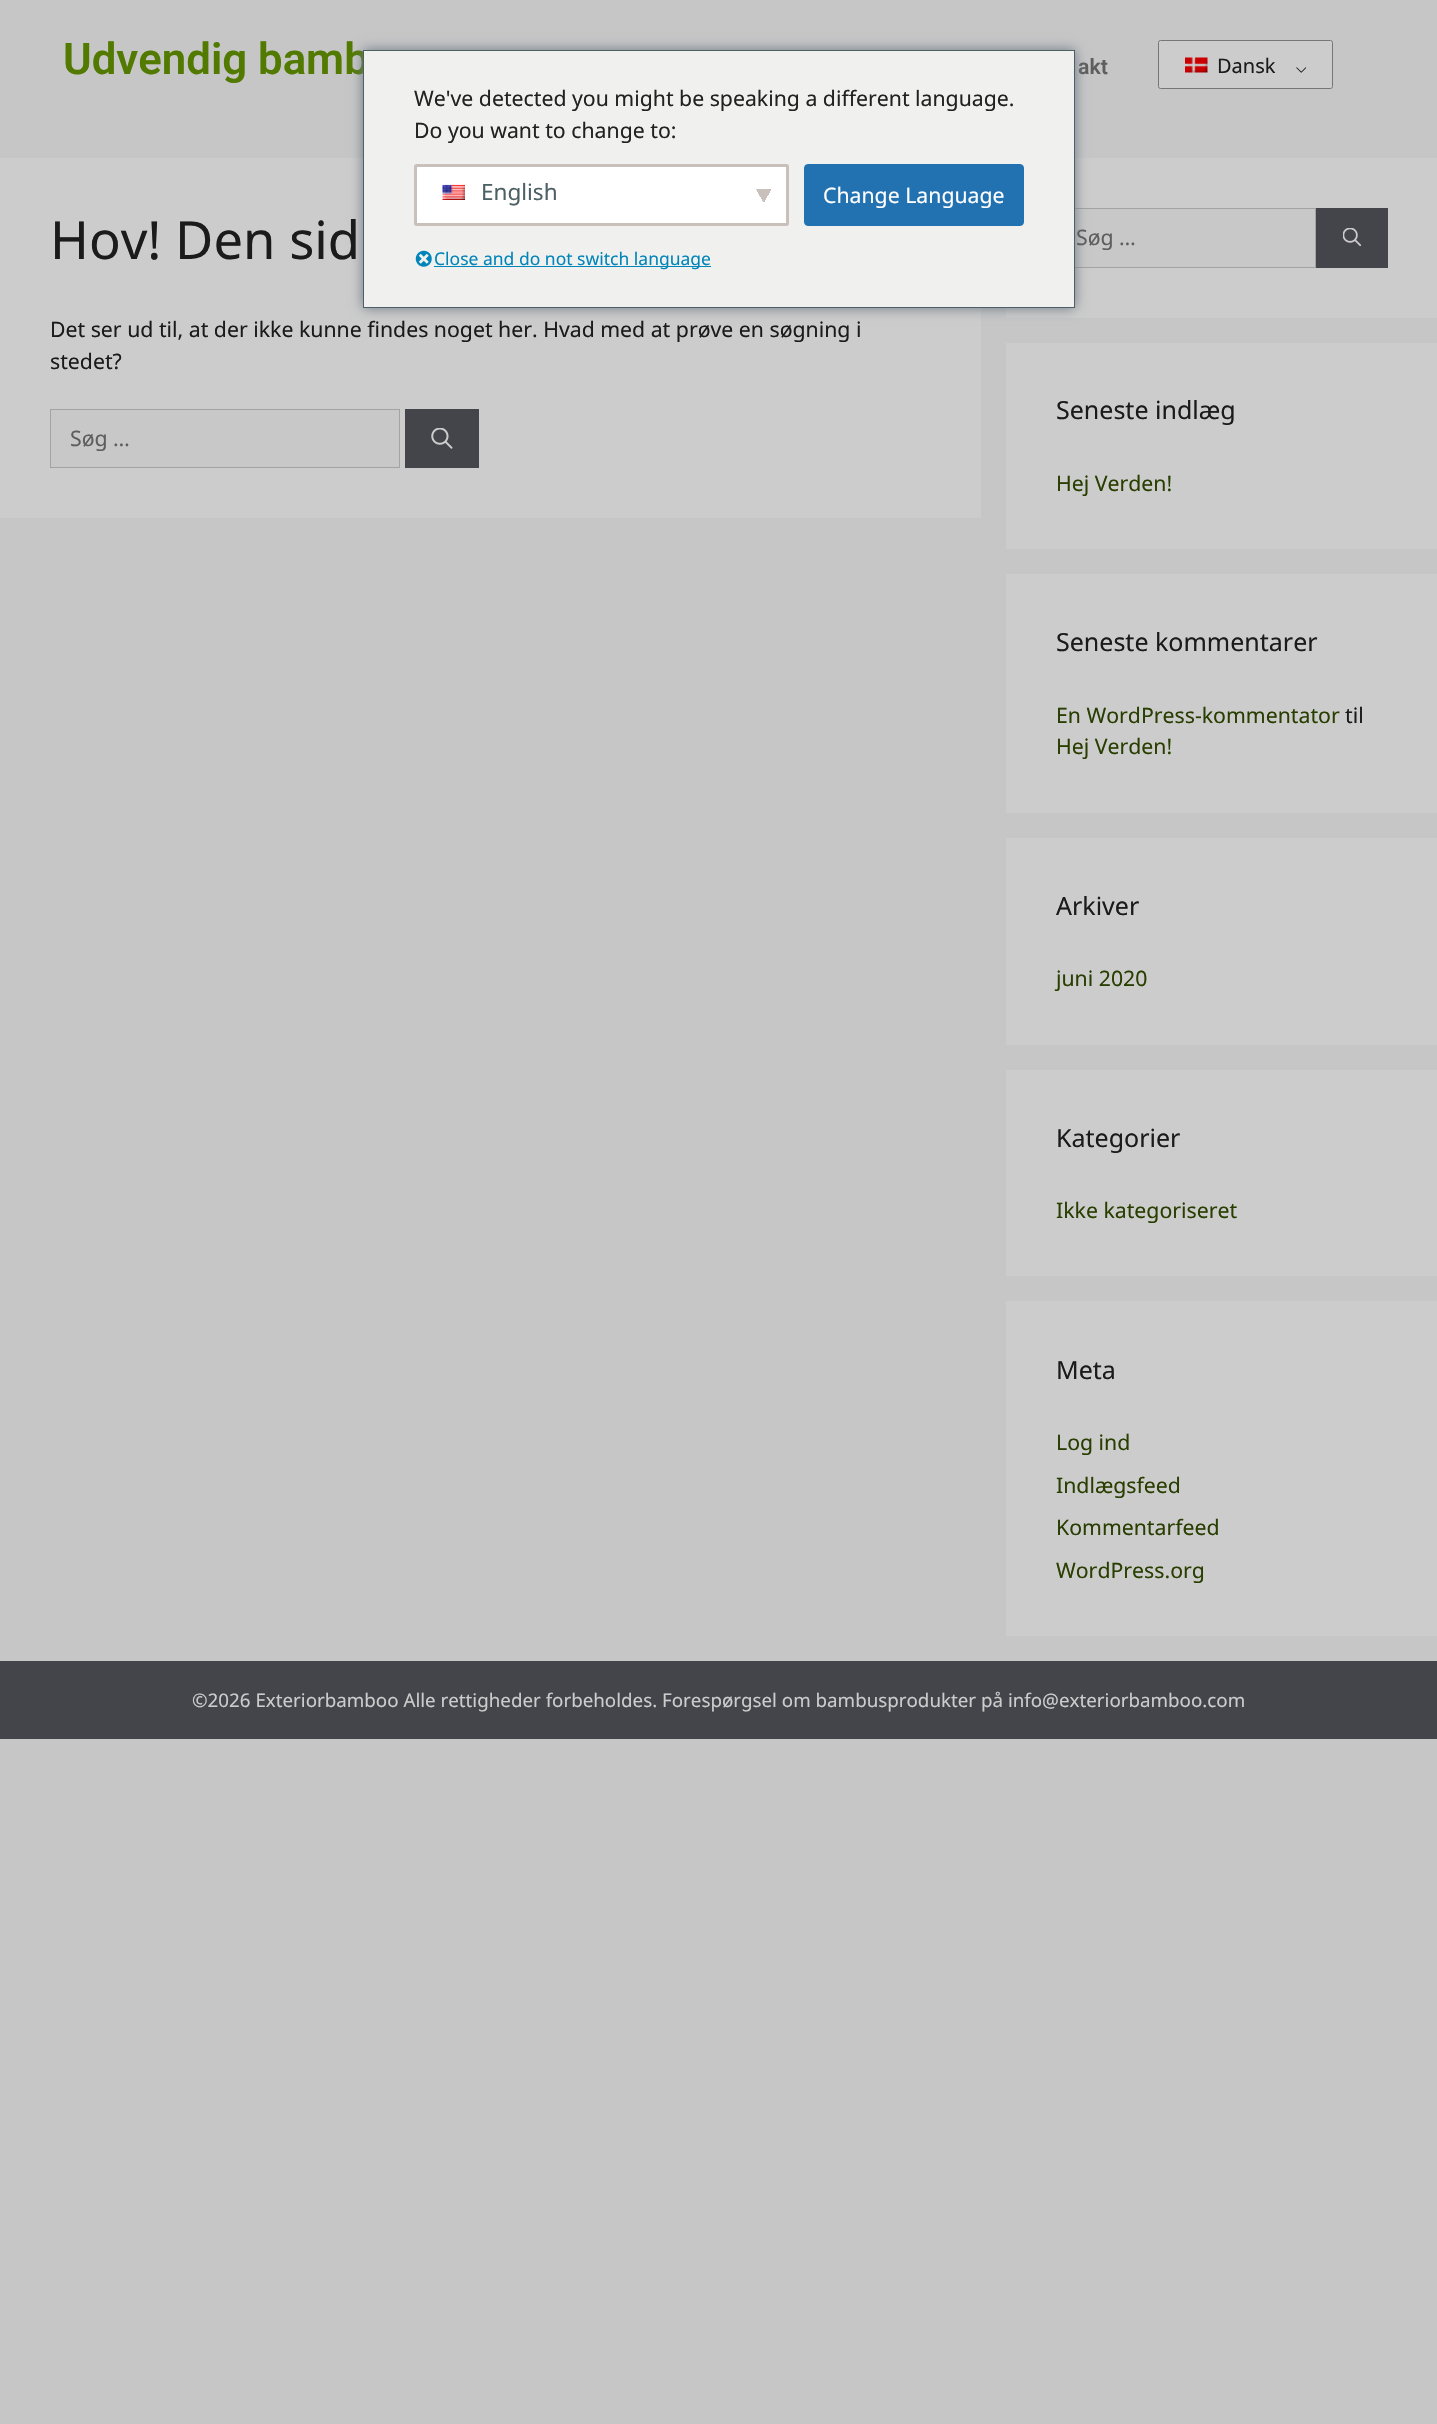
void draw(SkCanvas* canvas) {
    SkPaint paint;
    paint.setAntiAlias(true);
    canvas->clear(0xFFC6C6C7);
    SkFont font1(fontMgr->matchFamilyStyle("Roboto", SkFontStyle(600, SkFontStyle::kNormal_Width, SkFontStyle::kUpright_Slant)), 43.75f);
    font1.setSubpixel(true);
    paint.setColor(0xFF527A00);
    canvas->drawString("Udvendig bamb", 63, 74, font1, paint);
    SkFont font2(fontMgr->matchFamilyStyle("Roboto", SkFontStyle(600, SkFontStyle::kNormal_Width, SkFontStyle::kUpright_Slant)), 21.25f);
    font2.setSubpixel(true);
    paint.setColor(0xFF5E5E5E);
    canvas->drawString("akt", 1078, 74, font2, paint);
    paint.setColor(0xFFCCCCCC);
    canvas->drawRoundRect(SkRect::MakeXYWH(1158, 40, 175, 49), 2.5f, 2.5f, paint);
    canvas->drawImageRect(SkImages::DeferredFromEncodedData(SkData::MakeFromFileName("img1.png")), SkRect::MakeXYWH(1296, 67, 10, 6), SkSamplingOptions());
    paint.setStyle(SkPaint::kStroke_Style);
    paint.setStrokeWidth(1);
    paint.setColor(0xFF767676);
    canvas->drawRoundRect(SkRect::MakeXYWH(1158.5f, 40.5f, 174, 48), 2, 2, paint);
    canvas->drawImageRect(SkImages::DeferredFromEncodedData(SkData::MakeFromFileName("img2.png")), SkRect::MakeXYWH(1185, 57, 23, 16), SkSamplingOptions());
    SkFont font3(fontMgr->matchFamilyStyle("Noto Sans", SkFontStyle::Normal()), 20);
    font3.setSubpixel(true);
    paint.setStyle(SkPaint::kFill_Style);
    paint.setColor(0xFF1B1B1B);
    canvas->drawString("Dansk", 1217, 73, font3, paint);
    paint.setColor(0xFFCCCCCC);
    canvas->drawRect(SkRect::MakeXYWH(0, 158, 981, 360), paint);
    canvas->drawRect(SkRect::MakeXYWH(1006, 158, 431, 160), paint);
    paint.setColor(0xFFC8C8C8);
    canvas->drawRect(SkRect::MakeXYWH(1075, 209, 240, 58), paint);
    paint.setStyle(SkPaint::kStroke_Style);
    paint.setColor(0xFFA3A3A3);
    canvas->drawRect(SkRect::MakeXYWH(1056.5f, 208.5f, 259, 59), paint);
    paint.setStyle(SkPaint::kFill_Style);
    paint.setColor(0xFF6C7781);
    paint.setMaskFilter(SkMaskFilter::MakeBlur(kNormal_SkBlurStyle, 6));
    canvas->drawRect(SkRect::MakeXYWH(363, 50, 712, 258), paint);
    paint.setMaskFilter(nullptr);
    paint.setColor(0xFFF0F0EE);
    canvas->drawRect(SkRect::MakeXYWH(363.5f, 50.5f, 711, 257), paint);
    paint.setStyle(SkPaint::kStroke_Style);
    paint.setColor(0xFF4C6066);
    canvas->drawRect(SkRect::MakeXYWH(363.5f, 50.5f, 711, 257), paint);
    SkFont font4(fontMgr->matchFamilyStyle("Noto Sans", SkFontStyle::Normal()), 21.25f);
    font4.setSubpixel(true);
    paint.setStyle(SkPaint::kFill_Style);
    paint.setColor(0xFF222222);
    canvas->drawString("We've detected you might be speaking a different language.", 414, 106, font4, paint);
    canvas->drawString("Do you want to change to:", 414, 138, font4, paint);
    paint.setColor(0xFFFFFFFF);
    canvas->drawRoundRect(SkRect::MakeXYWH(414, 164, 375, 62), 2.5f, 2.5f, paint);
    {
        const SkColor colors[] = {0xFFC9C0BB, 0xFFFFFFFF};
        const float stops[] = {0.5f, 0.5f};
        const SkPoint ends[] = {{761, 193}, {774, 200}};
        paint.setShader(SkGradientShader::MakeLinear(ends, colors, stops, 2, SkTileMode::kClamp));
        paint.setAlpha(255);
    }
    canvas->drawRect(SkRect::MakeXYWH(764, 189, 7, 15), paint);
    {
        const SkColor colors[] = {0xFFFFFFFF, 0xFFC9C0BB};
        const float stops[] = {0.5f, 0.5f};
        const SkPoint ends[] = {{754, 200}, {766, 193}};
        paint.setShader(SkGradientShader::MakeLinear(ends, colors, stops, 2, SkTileMode::kClamp));
        paint.setAlpha(255);
    }
    canvas->drawRect(SkRect::MakeXYWH(756, 189, 8, 15), paint);
    paint.setStyle(SkPaint::kStroke_Style);
    paint.setStrokeWidth(3);
    paint.setShader(nullptr);
    paint.setColor(0xFFC9C0BB);
    canvas->drawRoundRect(SkRect::MakeXYWH(415.5f, 165.5f, 372, 59), 1, 1, paint);
    canvas->drawImageRect(SkImages::DeferredFromEncodedData(SkData::MakeFromFileName("img3.png")), SkRect::MakeXYWH(442, 184, 23, 16), SkSamplingOptions());
    SkFont font5(fontMgr->matchFamilyStyle("Noto Sans", SkFontStyle::Normal()), 22.5f);
    font5.setSubpixel(true);
    paint.setStyle(SkPaint::kFill_Style);
    paint.setColor(0xFF4C6066);
    canvas->drawString("English", 481, 200, font5, paint);
    paint.setColor(0xFF2271B1);
    canvas->drawRoundRect(SkRect::MakeXYWH(804.5f, 164.5f, 219, 61), 3.5f, 3.5f, paint);
    paint.setStyle(SkPaint::kStroke_Style);
    paint.setStrokeWidth(1);
    canvas->drawRoundRect(SkRect::MakeXYWH(804.5f, 164.5f, 219, 61), 3.5f, 3.5f, paint);
    paint.setStyle(SkPaint::kFill_Style);
    paint.setColor(0xFFFFFFFF);
    canvas->drawString("Change Language", 823, 203, font4, paint);
    canvas->drawImageRect(SkImages::DeferredFromEncodedData(SkData::MakeFromFileName("img4.png")), SkRect::MakeXYWH(415, 250, 17, 17), SkSamplingOptions());
    paint.setColor(0xFF0085BA);
    canvas->drawRect(SkRect::MakeXYWH(434, 266, 277, 1), paint);
    SkFont font6(fontMgr->matchFamilyStyle("Noto Sans", SkFontStyle::Normal()), 17.5f);
    font6.setSubpixel(true);
    canvas->drawString("Close and do not switch language", 434, 265, font6, paint);
    SkFont font7(fontMgr->matchFamilyStyle("Noto Sans", SkFontStyle::Normal()), 52.5f);
    font7.setSubpixel(true);
    paint.setColor(0xFF1B1B1B);
    canvas->drawString("Hov! Den sid", 50, 259, font7, paint);
    canvas->drawString("Det ser ud til, at der ikke kunne findes noget her. Hvad med at prøve en søgning i", 50, 337, font4, paint);
    canvas->drawString("stedet?", 50, 369, font4, paint);
    paint.setColor(0xFFC8C8C8);
    canvas->drawRect(SkRect::MakeXYWH(50.5f, 409.5f, 349, 58), paint);
    paint.setStyle(SkPaint::kStroke_Style);
    paint.setColor(0xFFA3A3A3);
    canvas->drawRect(SkRect::MakeXYWH(50.5f, 409.5f, 349, 58), paint);
    paint.setStyle(SkPaint::kFill_Style);
    paint.setColor(0xFF5E5E5E);
    canvas->drawString("Søg …", 70, 446, font4, paint);
    paint.setColor(0xFF44444B);
    canvas->drawRect(SkRect::MakeXYWH(405, 409, 74, 59), paint);
    canvas->drawImageRect(SkImages::DeferredFromEncodedData(SkData::MakeFromFileName("img5.png")), SkRect::MakeXYWH(431, 428, 22, 21), SkSamplingOptions());
    paint.setColor(0xFF5E5E5E);
    canvas->drawString("Søg …", 1076, 245, font4, paint);
    paint.setColor(0xFF44444B);
    canvas->drawRect(SkRect::MakeXYWH(1316, 208, 72, 60), paint);
    canvas->drawImageRect(SkImages::DeferredFromEncodedData(SkData::MakeFromFileName("img6.png")), SkRect::MakeXYWH(1343, 228, 18, 18), SkSamplingOptions());
    paint.setColor(0xFFCCCCCC);
    canvas->drawRect(SkRect::MakeXYWH(1006, 343, 431, 206), paint);
    SkFont font8(fontMgr->matchFamilyStyle("Noto Sans", SkFontStyle::Normal()), 25);
    font8.setSubpixel(true);
    paint.setColor(0xFF1B1B1B);
    canvas->drawString("Seneste indlæg", 1056, 419, font8, paint);
    paint.setColor(0xFF293E01);
    canvas->drawString("Hej Verden!", 1056, 491, font4, paint);
    paint.setColor(0xFFCCCCCC);
    canvas->drawRect(SkRect::MakeXYWH(1006, 574, 431, 239), paint);
    paint.setColor(0xFF1B1B1B);
    canvas->drawString("Seneste kommentarer", 1056, 651, font8, paint);
    paint.setColor(0xFF293E01);
    canvas->drawString("En WordPress-kommentator", 1056, 723, font4, paint);
    paint.setColor(0xFF1B1B1B);
    canvas->drawString("til", 1345, 723, font4, paint);
    paint.setColor(0xFF293E01);
    canvas->drawString("Hej Verden!", 1056, 754, font4, paint);
    paint.setColor(0xFFCCCCCC);
    canvas->drawRect(SkRect::MakeXYWH(1006, 838, 431, 207), paint);
    paint.setColor(0xFF1B1B1B);
    canvas->drawString("Arkiver", 1056, 915, font8, paint);
    paint.setColor(0xFF293E01);
    canvas->drawString("juni 2020", 1056, 986, font4, paint);
    paint.setColor(0xFFCCCCCC);
    canvas->drawRect(SkRect::MakeXYWH(1006, 1070, 431, 206), paint);
    paint.setColor(0xFF1B1B1B);
    canvas->drawString("Kategorier", 1056, 1147, font8, paint);
    paint.setColor(0xFF293E01);
    canvas->drawString("Ikke kategoriseret", 1056, 1218, font4, paint);
    paint.setColor(0xFFCCCCCC);
    canvas->drawRect(SkRect::MakeXYWH(1006, 1301, 431, 335), paint);
    paint.setColor(0xFF1B1B1B);
    canvas->drawString("Meta", 1056, 1379, font8, paint);
    paint.setColor(0xFF293E01);
    canvas->drawString("Log ind", 1056, 1450, font4, paint);
    canvas->drawString("Indlægsfeed", 1056, 1493, font4, paint);
    canvas->drawString("Kommentarfeed", 1056, 1535, font4, paint);
    canvas->drawString("WordPress.org", 1056, 1578, font4, paint);
    paint.setColor(0xFF44444B);
    canvas->drawRect(SkRect::MakeXYWH(0, 1661, 1437, 78), paint);
    SkFont font9(fontMgr->matchFamilyStyle("Noto Sans", SkFontStyle::Normal()), 18.75f);
    font9.setSubpixel(true);
    paint.setColor(0xFFCCCCCC);
    canvas->drawString("©2026 Exteriorbamboo Alle rettigheder forbeholdes. Forespørgsel om bambusprodukter på info@exteriorbamboo.com", 192, 1707, font9, paint);
}
